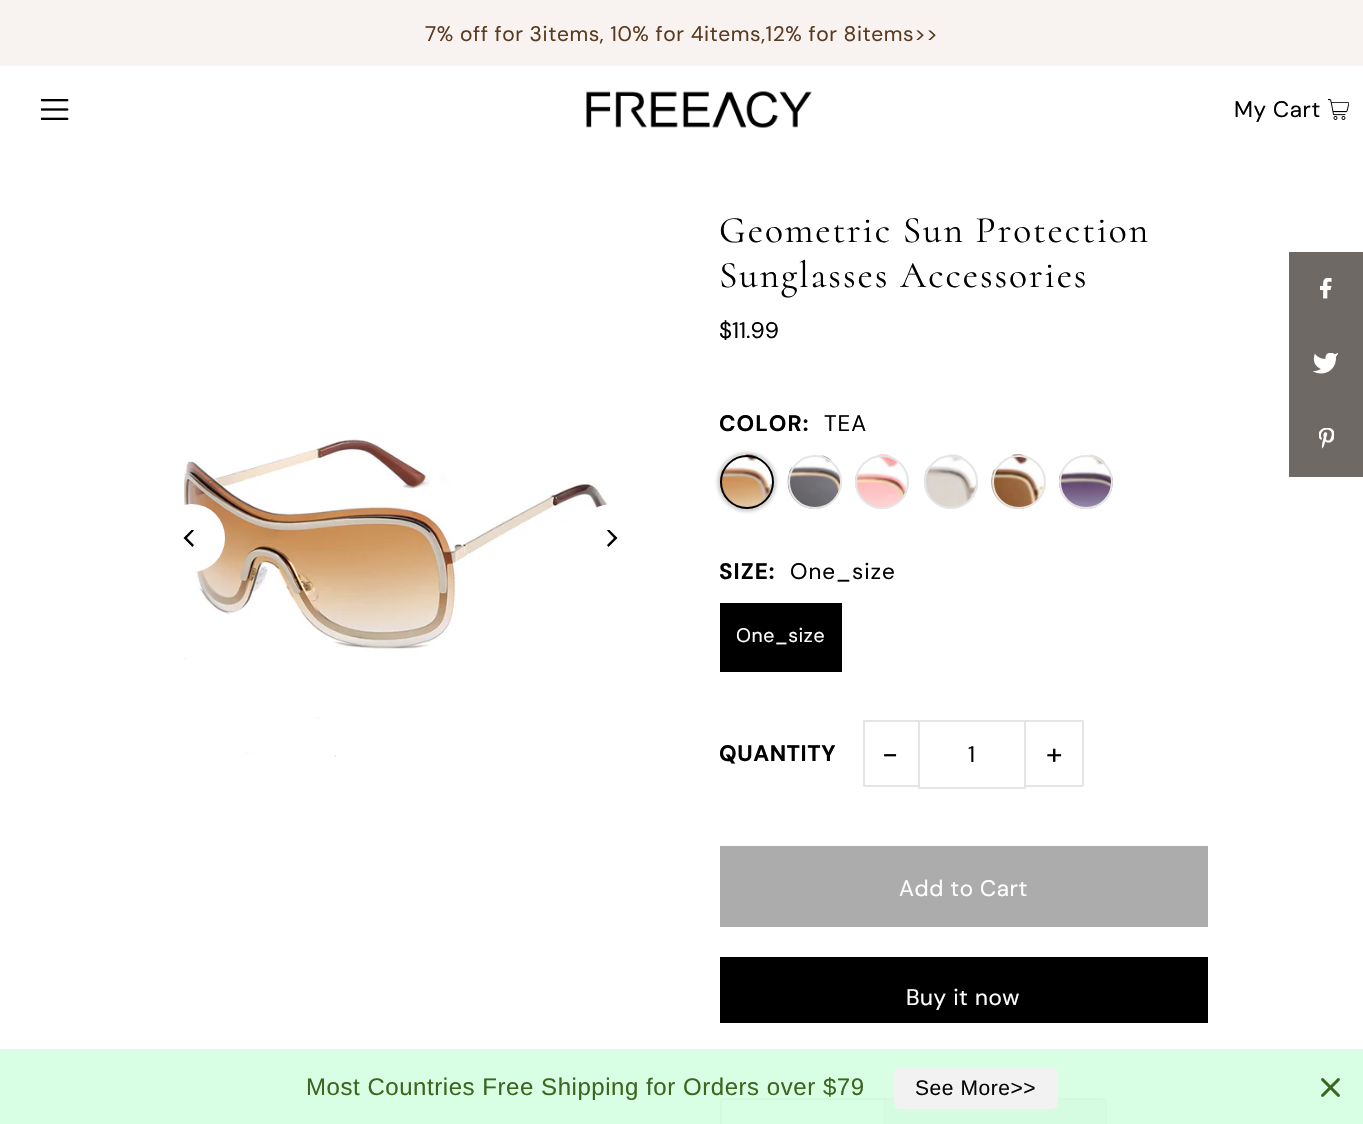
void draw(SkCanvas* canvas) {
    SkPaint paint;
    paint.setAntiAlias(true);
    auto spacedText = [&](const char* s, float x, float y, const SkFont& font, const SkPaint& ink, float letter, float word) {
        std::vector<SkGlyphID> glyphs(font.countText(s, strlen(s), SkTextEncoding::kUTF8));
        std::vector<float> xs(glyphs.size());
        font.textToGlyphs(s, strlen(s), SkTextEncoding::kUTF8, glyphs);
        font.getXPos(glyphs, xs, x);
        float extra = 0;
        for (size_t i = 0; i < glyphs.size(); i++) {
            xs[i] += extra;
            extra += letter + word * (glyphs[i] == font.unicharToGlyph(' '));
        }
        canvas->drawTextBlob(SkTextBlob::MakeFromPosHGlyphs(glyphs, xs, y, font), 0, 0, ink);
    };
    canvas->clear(0xFFFFFFFF);
    paint.setColor(0xFFD8FFE3);
    canvas->drawRect(SkRect::MakeXYWH(0, 1049, 1363, 75), paint);
    paint.setColor(0xFFF8F3F0);
    canvas->drawRect(SkRect::MakeXYWH(0, 0, 1363, 66), paint);
    SkFont font1(fontMgr->matchFamilyStyle("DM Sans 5", SkFontStyle::Normal()), 21);
    font1.setSubpixel(true);
    paint.setColor(0xFF5A3B21);
    spacedText("7% off for 3items, 10% for 4items,12% for 8items>>", 425, 41, font1, paint, 0.55f, 0);
    canvas->drawImageRect(SkImages::DeferredFromEncodedData(SkData::MakeFromFileName("img1.png")), SkRect::MakeXYWH(41, 99, 28, 21), SkSamplingOptions());
    canvas->drawImageRect(SkImages::DeferredFromEncodedData(SkData::MakeFromFileName("img2.png")), SkRect::MakeXYWH(586, 91, 226, 37), SkSamplingOptions());
    SkFont font2(fontMgr->matchFamilyStyle("DM Sans", SkFontStyle::Normal()), 22.5f);
    font2.setSubpixel(true);
    paint.setColor(0xFF000000);
    spacedText("My Cart", 1234, 117, font2, paint, 0.55f, 0);
    canvas->drawImageRect(SkImages::DeferredFromEncodedData(SkData::MakeFromFileName("img3.png")), SkRect::MakeXYWH(1328, 99, 21, 21), SkSamplingOptions());
    canvas->drawImageRect(SkImages::DeferredFromEncodedData(SkData::MakeFromFileName("img4.png")), SkRect::MakeXYWH(184, 439, 432, 318), SkSamplingOptions());
    paint.setColor(0xFFFFFFFF);
    canvas->drawRoundRect(SkRect::MakeXYWH(158, 504, 67, 68), 33.5f, 33.5f, paint);
    canvas->save();
    canvas->clipRect(SkRect::MakeXYWH(182, 530, 18, 18));
    paint.setColor(0xFF000000);
    canvas->drawPath(SkPathBuilder().moveTo(183.5f, 538).lineTo(192.5f, 547).lineTo(194, 545).lineTo(187, 538).lineTo(194, 530.5f).lineTo(192.5f, 529).close().detach(), paint);
    canvas->restore();
    paint.setColor(0xFFFFFFFF);
    canvas->drawRoundRect(SkRect::MakeXYWH(578, 504, 67, 68), 33.5f, 33.5f, paint);
    canvas->save();
    canvas->clipRect(SkRect::MakeXYWH(602, 530, 18, 18));
    paint.setColor(0xFF000000);
    canvas->drawPath(SkPathBuilder().moveTo(617.5f, 538).lineTo(608.5f, 529).lineTo(607, 530.5f).lineTo(614, 538).lineTo(607, 545).lineTo(608.5f, 547).close().detach(), paint);
    canvas->restore();
    SkFont font3(fontMgr->matchFamilyStyle("Cormorant", SkFontStyle::Normal()), 37.5f);
    font3.setSubpixel(true);
    spacedText("Geometric Sun Protection", 719, 242, font3, paint, 1.9f, 0);
    spacedText("Sunglasses Accessories", 719, 287, font3, paint, 1.9f, 0);
    canvas->drawString("$11.99", 719, 338, font2, paint);
    SkFont font4(fontMgr->matchFamilyStyle("DM Sans", SkFontStyle::Bold()), 22.5f);
    font4.setSubpixel(true);
    spacedText("COLOR:", 719, 431, font4, paint, 1, 0);
    spacedText("TEA", 824, 431, font2, paint, 1, 0);
    paint.setColor(0xFFD6D6D6);
    paint.setMaskFilter(SkMaskFilter::MakeBlur(kNormal_SkBlurStyle, 1.5f));
    canvas->drawRoundRect(SkRect::MakeXYWH(717, 452, 60, 60), 30, 30, paint);
    paint.setMaskFilter(nullptr);
    canvas->drawImageRect(SkImages::DeferredFromEncodedData(SkData::MakeFromFileName("img5.png")), SkRect::MakeXYWH(719, 454, 56, 55), SkSamplingOptions());
    paint.setStyle(SkPaint::kStroke_Style);
    paint.setStrokeWidth(2);
    paint.setColor(0xFF000000);
    canvas->drawCircle(747, 482, 26, paint);
    canvas->drawImageRect(SkImages::DeferredFromEncodedData(SkData::MakeFromFileName("img6.png")), SkRect::MakeXYWH(787, 455, 55, 54), SkSamplingOptions());
    paint.setColor(0xFFE5E5E5);
    canvas->drawCircle(815, 482, 26, paint);
    canvas->drawImageRect(SkImages::DeferredFromEncodedData(SkData::MakeFromFileName("img7.png")), SkRect::MakeXYWH(855, 454, 54, 55), SkSamplingOptions());
    canvas->drawCircle(882, 482, 26, paint);
    canvas->drawImageRect(SkImages::DeferredFromEncodedData(SkData::MakeFromFileName("img8.png")), SkRect::MakeXYWH(923, 454, 55, 55), SkSamplingOptions());
    canvas->drawCircle(951, 482, 26, paint);
    canvas->drawImageRect(SkImages::DeferredFromEncodedData(SkData::MakeFromFileName("img9.png")), SkRect::MakeXYWH(991, 454, 55, 55), SkSamplingOptions());
    canvas->drawCircle(1019, 482, 26, paint);
    canvas->drawImageRect(SkImages::DeferredFromEncodedData(SkData::MakeFromFileName("img10.png")), SkRect::MakeXYWH(1059, 454, 54, 55), SkSamplingOptions());
    canvas->drawCircle(1086, 482, 26, paint);
    paint.setStyle(SkPaint::kFill_Style);
    paint.setColor(0xFF000000);
    spacedText("SIZE:", 719, 579, font4, paint, 1, 0);
    spacedText("One_size", 790, 579, font2, paint, 1, 0);
    canvas->drawRect(SkRect::MakeXYWH(720, 603, 122, 69), paint);
    SkFont font5(fontMgr->matchFamilyStyle("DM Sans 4", SkFontStyle::Normal()), 19.5f);
    font5.setSubpixel(true);
    paint.setColor(0xFFFFFFFF);
    spacedText("One_size", 736, 642, font5, paint, 0.55f, 0);
    paint.setColor(0xFF000000);
    spacedText("QUANTITY", 719, 761, font4, paint, 0.55f, 0);
    paint.setColor(0xFFE5E5E5);
    canvas->drawRect(SkRect::MakeXYWH(863, 720, 57, 2), paint);
    canvas->drawRect(SkRect::MakeXYWH(863, 785, 57, 2), paint);
    canvas->drawRect(SkRect::MakeXYWH(863, 720, 2, 66), paint);
    SkFont font6(fontMgr->matchFamilyStyle("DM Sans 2", SkFontStyle::Normal()), 30);
    font6.setSubpixel(true);
    paint.setColor(0xFF000000);
    spacedText("-", 882, 764, font6, paint, 1, 0);
    paint.setStyle(SkPaint::kStroke_Style);
    paint.setColor(0xFFE5E5E5);
    canvas->drawRect(SkRect::MakeXYWH(919, 721, 106, 67), paint);
    paint.setStyle(SkPaint::kFill_Style);
    paint.setColor(0xFF000000);
    spacedText("1", 968, 762, font2, paint, 0.55f, 0);
    paint.setColor(0xFFE5E5E5);
    canvas->drawRect(SkRect::MakeXYWH(1026, 720, 57, 2), paint);
    canvas->drawRect(SkRect::MakeXYWH(1082, 720, 2, 66), paint);
    canvas->drawRect(SkRect::MakeXYWH(1026, 785, 57, 2), paint);
    SkFont font7(fontMgr->matchFamilyStyle("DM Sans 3", SkFontStyle::Normal()), 30);
    font7.setSubpixel(true);
    paint.setColor(0xFF000000);
    spacedText("+", 1046, 764, font7, paint, 1, 0);
    paint.setColor(0xFFACACAC);
    canvas->drawRect(SkRect::MakeXYWH(720, 846, 488, 81), paint);
    paint.setColor(0xFFFFFFFF);
    spacedText("Add to Cart", 899, 896, font2, paint, 0.55f, 0);
    paint.setColor(0xFF000000);
    canvas->drawRect(SkRect::MakeXYWH(720, 957, 488, 66), paint);
    paint.setColor(0xFFFFFFFF);
    spacedText("Buy it now", 906, 1005, font2, paint, 0.55f, 0);
    paint.setColor(0xFFD2F9DC);
    canvas->drawPath(SkPathBuilder(SkPathFillType::kEvenOdd).moveTo(724, 1098).lineTo(885, 1098).lineTo(885, 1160).lineTo(720, 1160).lineTo(720, 1102).cubicTo(720, 1100, 722, 1098, 724, 1098).close().moveTo(724, 1100).lineTo(884, 1100).lineTo(884, 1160).lineTo(722, 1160).lineTo(722, 1102).cubicTo(722, 1101, 723, 1100, 724, 1100).close().detach(), paint);
    paint.setColor(0xFFD5FCE0);
    canvas->drawPath(SkPathBuilder().moveTo(885, 1100).lineTo(1103, 1100).cubicTo(1104.5f, 1100, 1106, 1101.5f, 1106, 1103).lineTo(1106, 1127).lineTo(885, 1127).close().detach(), paint);
    paint.setColor(0xFFD2F9DC);
    canvas->drawPath(SkPathBuilder(SkPathFillType::kEvenOdd).moveTo(885, 1098).lineTo(1102, 1098).cubicTo(1105, 1098, 1107, 1100, 1107, 1102).lineTo(1107, 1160).lineTo(885, 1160).close().moveTo(885, 1100).lineTo(1102, 1100).cubicTo(1104, 1100, 1106, 1101, 1106, 1102).lineTo(1106, 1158).lineTo(885, 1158).close().detach(), paint);
    paint.setColor(0xFF6E6964);
    canvas->drawRect(SkRect::MakeXYWH(1289, 252, 74, 225), paint);
    canvas->drawImageRect(SkImages::DeferredFromEncodedData(SkData::MakeFromFileName("img11.png")), SkRect::MakeXYWH(1320, 278, 12, 21), SkSamplingOptions());
    canvas->drawImageRect(SkImages::DeferredFromEncodedData(SkData::MakeFromFileName("img12.png")), SkRect::MakeXYWH(1313, 353, 25, 21), SkSamplingOptions());
    canvas->drawImageRect(SkImages::DeferredFromEncodedData(SkData::MakeFromFileName("img13.png")), SkRect::MakeXYWH(1319, 428, 15, 21), SkSamplingOptions());
    SkFont font8(fontMgr->matchFamilyStyle("Liberation Sans", SkFontStyle::Normal()), 24);
    font8.setSubpixel(true);
    paint.setColor(0xFF3E6520);
    spacedText("Most Countries Free Shipping for Orders over $79", 306, 1095, font8, paint, 0.55f, 0);
    paint.setColor(0xFFF2F2F2);
    canvas->drawRoundRect(SkRect::MakeXYWH(894, 1067, 164, 42), 6, 6, paint);
    SkFont font9(fontMgr->matchFamilyStyle("Liberation Sans", SkFontStyle::Normal()), 21);
    font9.setSubpixel(true);
    paint.setColor(0xFF070707);
    spacedText("See More>>", 915, 1095, font9, paint, 0.55f, 0);
    canvas->drawImageRect(SkImages::DeferredFromEncodedData(SkData::MakeFromFileName("img14.png")), SkRect::MakeXYWH(1321, 1078, 19, 19), SkSamplingOptions());
}
